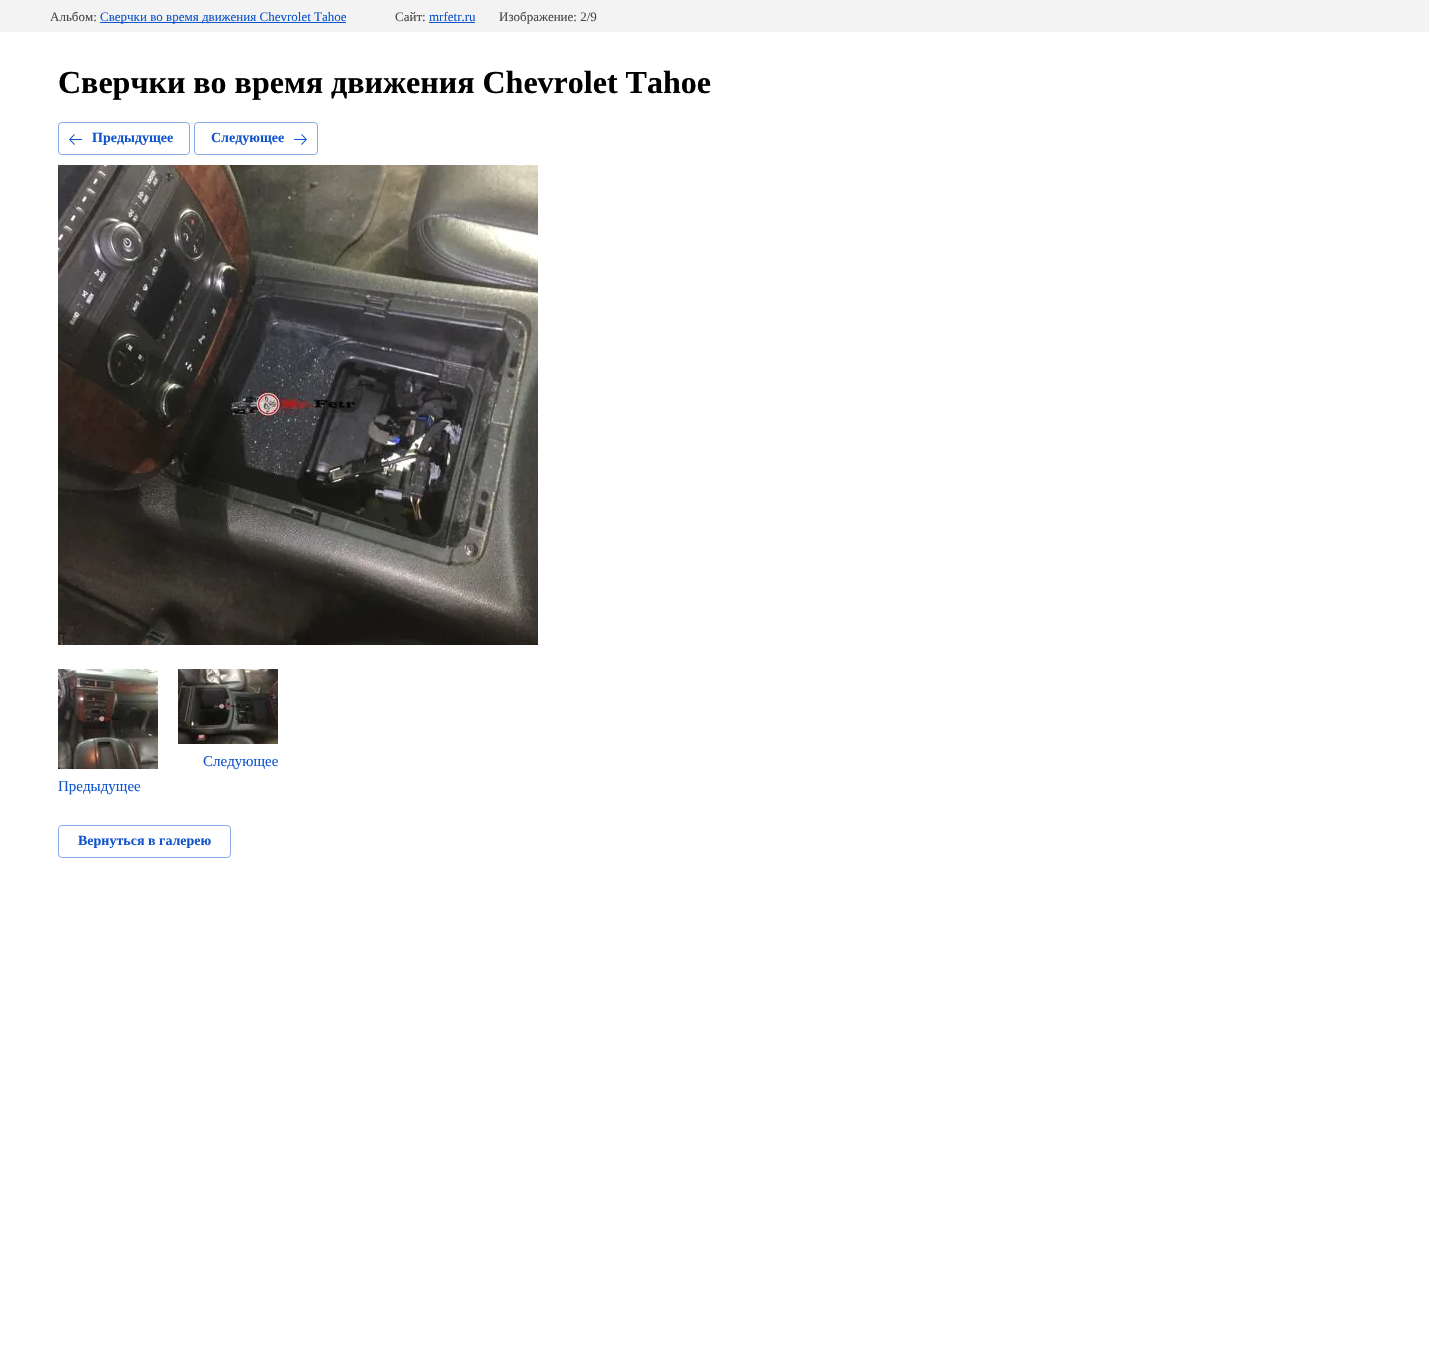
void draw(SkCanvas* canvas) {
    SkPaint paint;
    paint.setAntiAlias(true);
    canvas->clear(0xFFFFFFFF);
    paint.setColor(0xFFF3F3F3);
    canvas->drawRect(SkRect::MakeXYWH(0, 0, 1429, 32), paint);
    SkFont font1(fontMgr->matchFamilyStyle("Liberation Serif", SkFontStyle::Normal()), 13);
    font1.setSubpixel(true);
    paint.setColor(0xFF484848);
    canvas->drawString("Альбом:", 50, 21, font1, paint);
    paint.setColor(0xFF1155CC);
    canvas->drawRect(SkRect::MakeXYWH(100, 22, 246, 1), paint);
    canvas->drawString("Сверчки во время движения Chevrolet Tahoe", 100, 21, font1, paint);
    paint.setColor(0xFF484848);
    canvas->drawString("Сайт:", 395, 21, font1, paint);
    paint.setColor(0xFF1155CC);
    canvas->drawString("mrfetr.ru", 429, 21, font1, paint);
    canvas->drawRect(SkRect::MakeXYWH(429, 22, 46, 1), paint);
    paint.setColor(0xFF484848);
    canvas->drawString("Изображение: 2/9", 499, 21, font1, paint);
    SkFont font2(fontMgr->matchFamilyStyle("Liberation Serif", SkFontStyle::Bold()), 32);
    font2.setSubpixel(true);
    paint.setColor(0xFF000000);
    canvas->drawString("Сверчки во время движения Chevrolet Tahoe", 58, 93, font2, paint);
    paint.setStyle(SkPaint::kStroke_Style);
    paint.setStrokeWidth(1);
    paint.setColor(0xFF88AAE6);
    canvas->drawRoundRect(SkRect::MakeXYWH(58.5f, 122.5f, 131, 32), 3.5f, 3.5f, paint);
    canvas->drawImageRect(SkImages::DeferredFromEncodedData(SkData::MakeFromFileName("img1.png")), SkRect::MakeXYWH(69, 134, 13, 11), SkSamplingOptions());
    SkFont font3(fontMgr->matchFamilyStyle("Liberation Serif", SkFontStyle::Bold()), 14);
    font3.setSubpixel(true);
    paint.setStyle(SkPaint::kFill_Style);
    paint.setColor(0xFF1155CC);
    canvas->drawString("Предыдущее", 92, 142, font3, paint);
    paint.setStyle(SkPaint::kStroke_Style);
    paint.setColor(0xFF88AAE6);
    canvas->drawRoundRect(SkRect::MakeXYWH(194.5f, 122.5f, 123, 32), 3.5f, 3.5f, paint);
    paint.setStyle(SkPaint::kFill_Style);
    paint.setColor(0xFF1155CC);
    canvas->drawString("Следующее", 211, 142, font3, paint);
    canvas->drawImageRect(SkImages::DeferredFromEncodedData(SkData::MakeFromFileName("img2.png")), SkRect::MakeXYWH(294, 134, 13, 11), SkSamplingOptions());
    canvas->drawImageRect(SkImages::DeferredFromEncodedData(SkData::MakeFromFileName("img3.png")), SkRect::MakeXYWH(58, 165, 480, 480), SkSamplingOptions());
    canvas->drawImageRect(SkImages::DeferredFromEncodedData(SkData::MakeFromFileName("img4.png")), SkRect::MakeXYWH(178, 669, 100, 75), SkSamplingOptions());
    SkFont font4(fontMgr->matchFamilyStyle("Liberation Serif", SkFontStyle::Normal()), 15);
    font4.setSubpixel(true);
    canvas->drawString("Следующее", 203, 766, font4, paint);
    canvas->drawImageRect(SkImages::DeferredFromEncodedData(SkData::MakeFromFileName("img5.png")), SkRect::MakeXYWH(58, 669, 100, 100), SkSamplingOptions());
    canvas->drawString("Предыдущее", 58, 791, font4, paint);
    paint.setStyle(SkPaint::kStroke_Style);
    paint.setColor(0xFF88AAE6);
    canvas->drawRoundRect(SkRect::MakeXYWH(58.5f, 825.5f, 172, 32), 3.5f, 3.5f, paint);
    paint.setStyle(SkPaint::kFill_Style);
    paint.setColor(0xFF1155CC);
    canvas->drawString("Вернуться в галерею", 78, 845, font3, paint);
}
